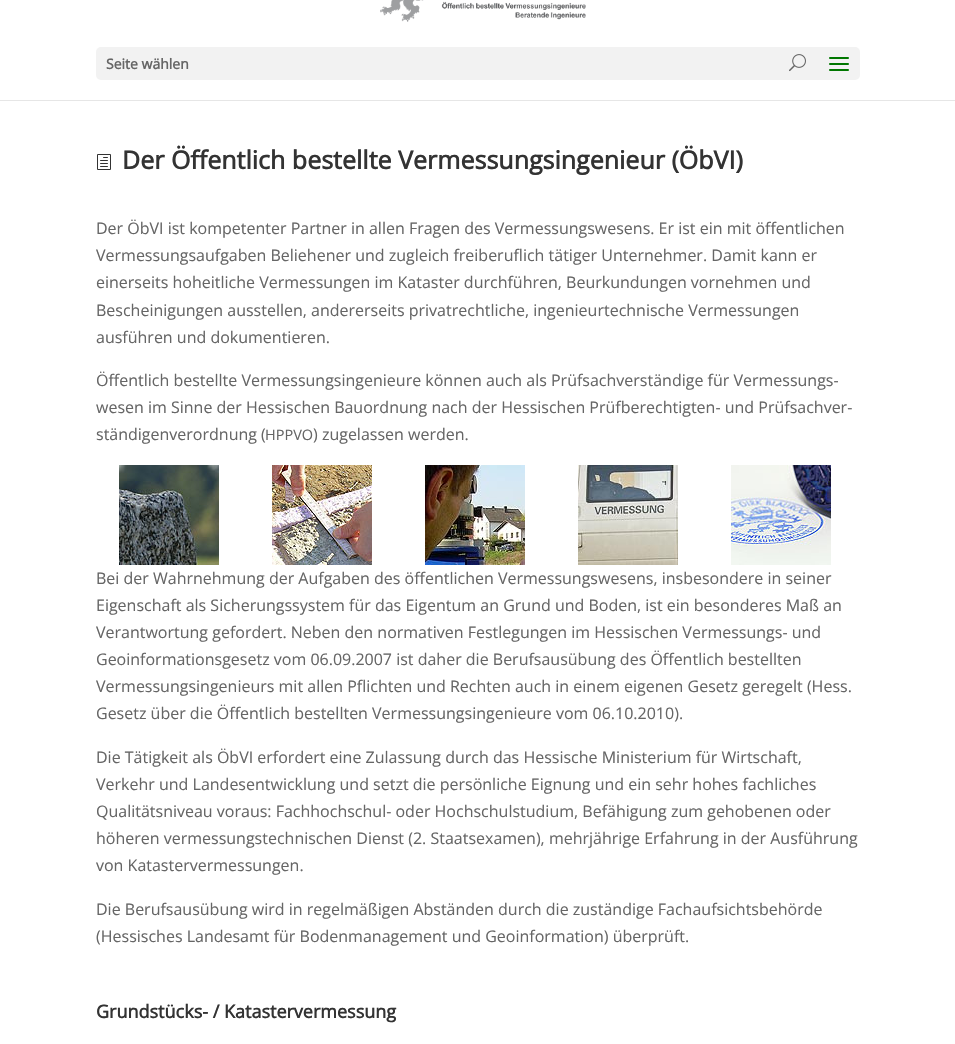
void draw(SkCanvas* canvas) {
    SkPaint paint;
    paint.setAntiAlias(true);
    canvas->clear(0xFFFFFFFF);
    paint.setColor(0xFFE6E6E6);
    canvas->drawRect(SkRect::MakeXYWH(0, 100, 955, 1), paint);
    canvas->drawImageRect(SkImages::DeferredFromEncodedData(SkData::MakeFromFileName("img1.png")), SkRect::MakeXYWH(380, 0, 206, 22), SkSamplingOptions());
    paint.setColor(0xFFF2F2F2);
    canvas->drawRoundRect(SkRect::MakeXYWH(96, 47, 764, 33), 5, 5, paint);
    SkFont font1(fontMgr->matchFamilyStyle("Open Sans", SkFontStyle::Bold()), 14);
    font1.setSubpixel(true);
    paint.setColor(0xFF666666);
    canvas->drawString("Seite wählen", 106, 69, font1, paint);
    canvas->drawImageRect(SkImages::DeferredFromEncodedData(SkData::MakeFromFileName("img2.png")), SkRect::MakeXYWH(829, 57, 20, 14), SkSamplingOptions());
    canvas->drawImageRect(SkImages::DeferredFromEncodedData(SkData::MakeFromFileName("img3.png")), SkRect::MakeXYWH(789, 54, 17, 18), SkSamplingOptions());
    canvas->drawImageRect(SkImages::DeferredFromEncodedData(SkData::MakeFromFileName("img4.png")), SkRect::MakeXYWH(97, 154, 14, 16), SkSamplingOptions());
    SkFont font2(fontMgr->matchFamilyStyle("Open Sans", SkFontStyle::Bold()), 25);
    font2.setSubpixel(true);
    paint.setColor(0xFF333333);
    canvas->drawString("Der Öffentlich bestellte Vermessungsingenieur (ÖbVI)", 122, 169, font2, paint);
    SkFont font3(fontMgr->matchFamilyStyle("Open Sans", SkFontStyle::Normal()), 16);
    font3.setSubpixel(true);
    paint.setColor(0xFF666666);
    canvas->drawString("Der ÖbVI ist kompetenter Partner in allen Fragen des Vermessungswesens. Er ist ein mit öffentlichen", 96, 234, font3, paint);
    canvas->drawString("Vermessungsaufgaben Beliehener und zugleich freiberuflich tätiger Unternehmer. Damit kann er", 96, 261, font3, paint);
    canvas->drawString("einerseits hoheitliche Vermessungen im Kataster durchführen, Beurkundungen vornehmen und", 96, 288, font3, paint);
    canvas->drawString("Bescheinigungen ausstellen, andererseits privatrechtliche, ingenieurtechnische Vermessungen", 96, 316, font3, paint);
    canvas->drawString("ausführen und dokumentieren.", 96, 343, font3, paint);
    canvas->drawString("Öffentlich bestellte Vermessungsingenieure können auch als Prüfsachverständige für Vermessungs-", 96, 386, font3, paint);
    canvas->drawString("wesen im Sinne der Hessischen Bauordnung nach der Hessischen Prüfberechtigten- und Prüfsachver-", 96, 413, font3, paint);
    canvas->drawString("ständigenverordnung (", 96, 440, font3, paint);
    SkFont font4(fontMgr->matchFamilyStyle("Open Sans", SkFontStyle::Normal()), 14.5f);
    font4.setSubpixel(true);
    canvas->drawString("HPPVO", 265, 440, font4, paint);
    canvas->drawString(") zugelassen werden.", 313, 440, font3, paint);
    canvas->drawImageRect(SkImages::DeferredFromEncodedData(SkData::MakeFromFileName("img5.png")), SkRect::MakeXYWH(119, 465, 100, 100), SkSamplingOptions());
    canvas->drawImageRect(SkImages::DeferredFromEncodedData(SkData::MakeFromFileName("img6.png")), SkRect::MakeXYWH(272, 465, 100, 100), SkSamplingOptions());
    canvas->drawImageRect(SkImages::DeferredFromEncodedData(SkData::MakeFromFileName("img7.png")), SkRect::MakeXYWH(425, 465, 100, 100), SkSamplingOptions());
    canvas->drawImageRect(SkImages::DeferredFromEncodedData(SkData::MakeFromFileName("img8.png")), SkRect::MakeXYWH(578, 465, 100, 100), SkSamplingOptions());
    canvas->drawImageRect(SkImages::DeferredFromEncodedData(SkData::MakeFromFileName("img9.png")), SkRect::MakeXYWH(731, 465, 100, 100), SkSamplingOptions());
    canvas->drawString("Bei der Wahrnehmung der Aufgaben des öffentlichen Vermessungswesens, insbesondere in seiner", 96, 584, font3, paint);
    canvas->drawString("Eigenschaft als Sicherungssystem für das Eigentum an Grund und Boden, ist ein besonderes Maß an", 96, 611, font3, paint);
    canvas->drawString("Verantwortung gefordert. Neben den normativen Festlegungen im Hessischen Vermessungs- und", 96, 638, font3, paint);
    canvas->drawString("Geoinformationsgesetz vom 06.09.2007 ist daher die Berufsausübung des Öffentlich bestellten", 96, 665, font3, paint);
    canvas->drawString("Vermessungsingenieurs mit allen Pflichten und Rechten auch in einem eigenen Gesetz geregelt (Hess.", 96, 692, font3, paint);
    canvas->drawString("Gesetz über die Öffentlich bestellten Vermessungsingenieure vom 06.10.2010).", 96, 719, font3, paint);
    canvas->drawString("Die Tätigkeit als ÖbVI erfordert eine Zulassung durch das Hessische Ministerium für Wirtschaft,", 96, 763, font3, paint);
    canvas->drawString("Verkehr und Landesentwicklung und setzt die persönliche Eignung und ein sehr hohes fachliches", 96, 790, font3, paint);
    canvas->drawString("Qualitätsniveau voraus: Fachhochschul- oder Hochschulstudium, Befähigung zum gehobenen oder", 96, 817, font3, paint);
    canvas->drawString("höheren vermessungstechnischen Dienst (2. Staatsexamen), mehrjährige Erfahrung in der Ausführung", 96, 844, font3, paint);
    canvas->drawString("von Katastervermessungen.", 96, 871, font3, paint);
    canvas->drawString("Die Berufsausübung wird in regelmäßigen Abständen durch die zuständige Fachaufsichtsbehörde", 96, 915, font3, paint);
    canvas->drawString("(Hessisches Landesamt für Bodenmanagement und Geoinformation) überprüft.", 96, 942, font3, paint);
    SkFont font5(fontMgr->matchFamilyStyle("Open Sans", SkFontStyle::Bold()), 18);
    font5.setSubpixel(true);
    paint.setColor(0xFF333333);
    canvas->drawString("Grundstücks- / Katastervermessung", 96, 1018, font5, paint);
}
